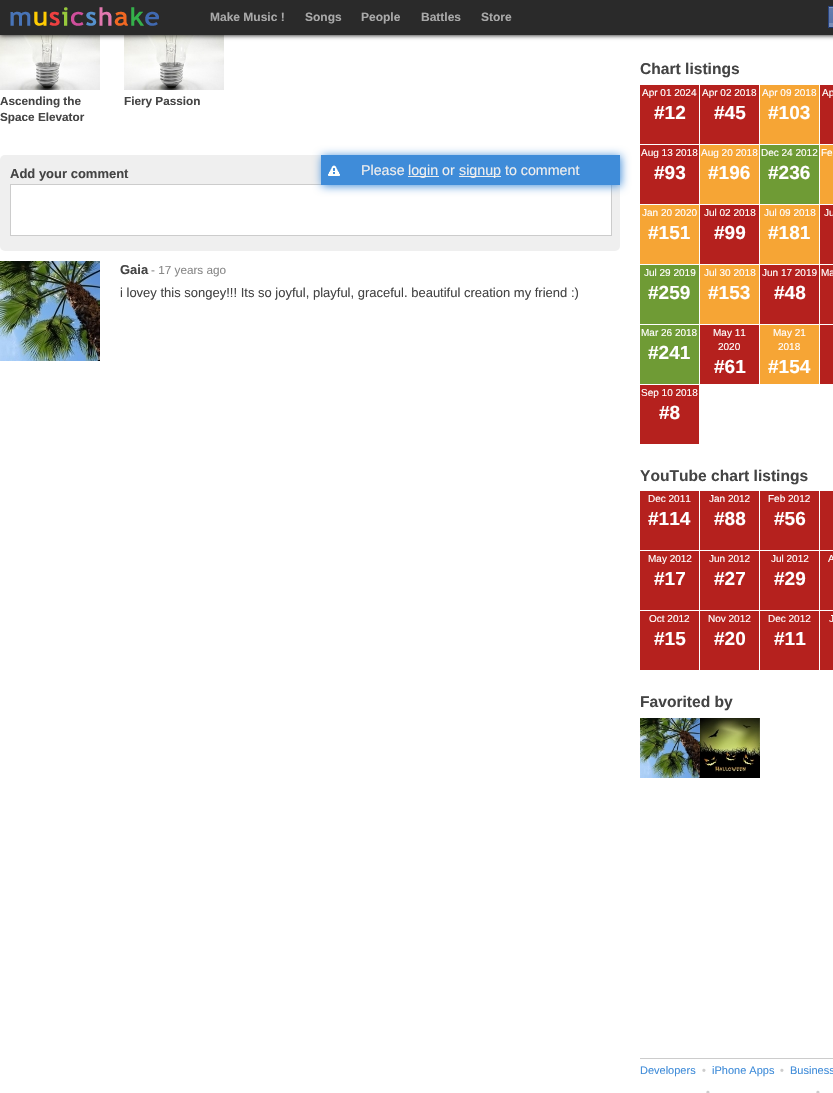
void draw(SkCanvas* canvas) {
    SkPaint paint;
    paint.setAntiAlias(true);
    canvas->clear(0xFFFFFFFF);
    canvas->drawImageRect(SkImages::DeferredFromEncodedData(SkData::MakeFromFileName("img3.png")), SkRect::MakeXYWH(0, 35, 100, 55), SkSamplingOptions());
    canvas->drawImageRect(SkImages::DeferredFromEncodedData(SkData::MakeFromFileName("img3.png")), SkRect::MakeXYWH(124, 35, 100, 55), SkSamplingOptions());
    paint.setColor(0xFF000000);
    paint.setMaskFilter(SkMaskFilter::MakeBlur(kNormal_SkBlurStyle, 2.5f));
    canvas->drawRect(SkRect::MakeXYWH(0, 0, 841, 35), paint);
    paint.setMaskFilter(nullptr);
    paint.setColor(0xFF2A2A2A);
    canvas->drawRect(SkRect::MakeXYWH(0, 0, 833, 35), paint);
    canvas->drawImageRect(SkImages::DeferredFromEncodedData(SkData::MakeFromFileName("img1.png")), SkRect::MakeXYWH(10, 7, 149, 19), SkSamplingOptions());
    SkFont font1(fontMgr->matchFamilyStyle("Liberation Sans", SkFontStyle::Bold()), 12);
    font1.setSubpixel(true);
    paint.setColor(0xFFA9A9A9);
    canvas->drawString("Make Music !", 210, 21, font1, paint);
    canvas->drawString("Songs", 305, 21, font1, paint);
    canvas->drawString("People", 361, 21, font1, paint);
    canvas->drawString("Battles", 421, 21, font1, paint);
    canvas->drawString("Store", 481, 21, font1, paint);
    canvas->drawImageRect(SkImages::DeferredFromEncodedData(SkData::MakeFromFileName("img2.png")), SkRect::MakeXYWH(828, 6, 5, 22), SkSamplingOptions());
    SkFont font2(fontMgr->matchFamilyStyle("Liberation Sans", SkFontStyle::Bold()), 11.75f);
    font2.setSubpixel(true);
    paint.setColor(0xFF444444);
    canvas->drawString("Ascending the", 0, 105, font2, paint);
    canvas->drawString("Space Elevator", 0, 121, font2, paint);
    canvas->drawString("Fiery Passion", 124, 105, font2, paint);
    paint.setColor(0xFFEFEFEF);
    canvas->drawRoundRect(SkRect::MakeXYWH(0, 155, 620, 96), 5, 5, paint);
    SkFont font3(fontMgr->matchFamilyStyle("Liberation Sans", SkFontStyle::Bold()), 13);
    font3.setSubpixel(true);
    paint.setColor(0xFF444444);
    canvas->drawString("Add your comment", 10, 178, font3, paint);
    paint.setColor(0xFFFFFFFF);
    canvas->drawRect(SkRect::MakeXYWH(10.5f, 184.5f, 601, 51), paint);
    paint.setStyle(SkPaint::kStroke_Style);
    paint.setStrokeWidth(1);
    paint.setColor(0xFFCCCCCC);
    canvas->drawRect(SkRect::MakeXYWH(10.5f, 184.5f, 601, 51), paint);
    paint.setStyle(SkPaint::kFill_Style);
    paint.setColor(0xFF3F8CD9);
    paint.setMaskFilter(SkMaskFilter::MakeBlur(kNormal_SkBlurStyle, 5));
    canvas->drawRect(SkRect::MakeXYWH(322, 156, 299, 30), paint);
    paint.setMaskFilter(nullptr);
    canvas->drawRect(SkRect::MakeXYWH(321, 155, 299, 30), paint);
    canvas->drawImageRect(SkImages::DeferredFromEncodedData(SkData::MakeFromFileName("img4.png")), SkRect::MakeXYWH(328, 165, 12, 11), SkSamplingOptions());
    SkFont font4(fontMgr->matchFamilyStyle("Liberation Sans", SkFontStyle::Normal()), 14.25f);
    font4.setSubpixel(true);
    paint.setColor(0xFFEEEEEE);
    canvas->drawString("Please", 361, 175, font4, paint);
    canvas->drawRect(SkRect::MakeXYWH(408, 176, 31, 1), paint);
    canvas->drawString("login or", 408, 175, font4, paint);
    canvas->drawRect(SkRect::MakeXYWH(459, 176, 42, 1), paint);
    canvas->drawString("signup to comment", 459, 175, font4, paint);
    canvas->drawImageRect(SkImages::DeferredFromEncodedData(SkData::MakeFromFileName("img5.png")), SkRect::MakeXYWH(0, 261, 100, 100), SkSamplingOptions());
    paint.setColor(0xFF444444);
    canvas->drawString("Gaia", 120, 274, font3, paint);
    SkFont font5(fontMgr->matchFamilyStyle("Liberation Sans", SkFontStyle::Normal()), 11.75f);
    font5.setSubpixel(true);
    paint.setColor(0xFF888888);
    canvas->drawString("- 17 years ago", 151, 274, font5, paint);
    SkFont font6(fontMgr->matchFamilyStyle("Liberation Sans", SkFontStyle::Normal()), 13);
    font6.setSubpixel(true);
    paint.setColor(0xFF444444);
    canvas->drawString("i lovey this songey!!! Its so joyful, playful, graceful. beautiful creation my friend :)", 120, 297, font6, paint);
    SkFont font7(fontMgr->matchFamilyStyle("Liberation Sans", SkFontStyle::Bold()), 15.6f);
    font7.setSubpixel(true);
    canvas->drawString("Chart listings", 640, 74, font7, paint);
    paint.setColor(0xFFB5211E);
    canvas->drawRect(SkRect::MakeXYWH(640, 85, 59, 59), paint);
    SkFont font8(fontMgr->matchFamilyStyle("Liberation Sans", SkFontStyle::Normal()), 10);
    font8.setSubpixel(true);
    paint.setColor(0xFFFFFFFF);
    canvas->drawString("Apr 01 2024", 642, 96, font8, paint);
    SkFont font9(fontMgr->matchFamilyStyle("Liberation Sans", SkFontStyle::Bold()), 19);
    font9.setSubpixel(true);
    canvas->drawString("#12", 654, 119, font9, paint);
    paint.setColor(0xFFB5211E);
    canvas->drawRect(SkRect::MakeXYWH(700, 85, 59, 59), paint);
    paint.setColor(0xFFFFFFFF);
    canvas->drawString("Apr 02 2018", 702, 96, font8, paint);
    canvas->drawString("#45", 714, 119, font9, paint);
    paint.setColor(0xFFF6A535);
    canvas->drawRect(SkRect::MakeXYWH(760, 85, 59, 59), paint);
    paint.setColor(0xFFFFFFFF);
    canvas->drawString("Apr 09 2018", 762, 96, font8, paint);
    canvas->drawString("#103", 768, 119, font9, paint);
    paint.setColor(0xFFB5211E);
    canvas->drawRect(SkRect::MakeXYWH(820, 85, 13, 59), paint);
    paint.setColor(0xFFFFFFFF);
    canvas->drawString("Ap", 822, 96, font8, paint);
    paint.setColor(0xFFB5211E);
    canvas->drawRect(SkRect::MakeXYWH(640, 145, 59, 59), paint);
    paint.setColor(0xFFFFFFFF);
    canvas->drawString("Aug 13 2018", 641, 156, font8, paint);
    canvas->drawString("#93", 654, 179, font9, paint);
    paint.setColor(0xFFF6A535);
    canvas->drawRect(SkRect::MakeXYWH(700, 145, 59, 59), paint);
    paint.setColor(0xFFFFFFFF);
    canvas->drawString("Aug 20 2018", 701, 156, font8, paint);
    canvas->drawString("#196", 708, 179, font9, paint);
    paint.setColor(0xFF6F9B35);
    canvas->drawRect(SkRect::MakeXYWH(760, 145, 59, 59), paint);
    paint.setColor(0xFFFFFFFF);
    canvas->drawString("Dec 24 2012", 761, 156, font8, paint);
    canvas->drawString("#236", 768, 179, font9, paint);
    paint.setColor(0xFFF6A535);
    canvas->drawRect(SkRect::MakeXYWH(820, 145, 13, 59), paint);
    paint.setColor(0xFFFFFFFF);
    canvas->drawString("Fe", 821, 156, font8, paint);
    paint.setColor(0xFFF6A535);
    canvas->drawRect(SkRect::MakeXYWH(640, 205, 59, 59), paint);
    paint.setColor(0xFFFFFFFF);
    canvas->drawString("Jan 20 2020", 642, 216, font8, paint);
    canvas->drawString("#151", 648, 239, font9, paint);
    paint.setColor(0xFFB5211E);
    canvas->drawRect(SkRect::MakeXYWH(700, 205, 59, 59), paint);
    paint.setColor(0xFFFFFFFF);
    canvas->drawString("Jul 02 2018", 704, 216, font8, paint);
    canvas->drawString("#99", 714, 239, font9, paint);
    paint.setColor(0xFFF6A535);
    canvas->drawRect(SkRect::MakeXYWH(760, 205, 59, 59), paint);
    paint.setColor(0xFFFFFFFF);
    canvas->drawString("Jul 09 2018", 764, 216, font8, paint);
    canvas->drawString("#181", 768, 239, font9, paint);
    paint.setColor(0xFFB5211E);
    canvas->drawRect(SkRect::MakeXYWH(820, 205, 13, 59), paint);
    paint.setColor(0xFFFFFFFF);
    canvas->drawString("Ju", 824, 216, font8, paint);
    paint.setColor(0xFF6F9B35);
    canvas->drawRect(SkRect::MakeXYWH(640, 265, 59, 59), paint);
    paint.setColor(0xFFFFFFFF);
    canvas->drawString("Jul 29 2019", 644, 276, font8, paint);
    canvas->drawString("#259", 648, 299, font9, paint);
    paint.setColor(0xFFF6A535);
    canvas->drawRect(SkRect::MakeXYWH(700, 265, 59, 59), paint);
    paint.setColor(0xFFFFFFFF);
    canvas->drawString("Jul 30 2018", 704, 276, font8, paint);
    canvas->drawString("#153", 708, 299, font9, paint);
    paint.setColor(0xFFB5211E);
    canvas->drawRect(SkRect::MakeXYWH(760, 265, 59, 59), paint);
    paint.setColor(0xFFFFFFFF);
    canvas->drawString("Jun 17 2019", 762, 276, font8, paint);
    canvas->drawString("#48", 774, 299, font9, paint);
    paint.setColor(0xFFB5211E);
    canvas->drawRect(SkRect::MakeXYWH(820, 265, 13, 59), paint);
    paint.setColor(0xFFFFFFFF);
    canvas->drawString("Ma", 821, 276, font8, paint);
    paint.setColor(0xFF6F9B35);
    canvas->drawRect(SkRect::MakeXYWH(640, 325, 59, 59), paint);
    paint.setColor(0xFFFFFFFF);
    canvas->drawString("Mar 26 2018", 641, 336, font8, paint);
    canvas->drawString("#241", 648, 359, font9, paint);
    paint.setColor(0xFFB5211E);
    canvas->drawRect(SkRect::MakeXYWH(700, 325, 59, 59), paint);
    paint.setColor(0xFFFFFFFF);
    canvas->drawString("May 11", 713, 336, font8, paint);
    canvas->drawString("2020", 718, 350, font8, paint);
    canvas->drawString("#61", 714, 373, font9, paint);
    paint.setColor(0xFFF6A535);
    canvas->drawRect(SkRect::MakeXYWH(760, 325, 59, 59), paint);
    paint.setColor(0xFFFFFFFF);
    canvas->drawString("May 21", 773, 336, font8, paint);
    canvas->drawString("2018", 778, 350, font8, paint);
    canvas->drawString("#154", 768, 373, font9, paint);
    paint.setColor(0xFFB5211E);
    canvas->drawRect(SkRect::MakeXYWH(820, 325, 13, 59), paint);
    canvas->drawRect(SkRect::MakeXYWH(640, 385, 59, 59), paint);
    paint.setColor(0xFFFFFFFF);
    canvas->drawString("Sep 10 2018", 641, 396, font8, paint);
    canvas->drawString("#8", 659, 419, font9, paint);
    paint.setColor(0xFF444444);
    canvas->drawString("YouTube chart listings", 640, 481, font7, paint);
    paint.setColor(0xFFB5211E);
    canvas->drawRect(SkRect::MakeXYWH(640, 491, 59, 59), paint);
    paint.setColor(0xFFFFFFFF);
    canvas->drawString("Dec 2011", 648, 502, font8, paint);
    canvas->drawString("#114", 648, 525, font9, paint);
    paint.setColor(0xFFB5211E);
    canvas->drawRect(SkRect::MakeXYWH(700, 491, 59, 59), paint);
    paint.setColor(0xFFFFFFFF);
    canvas->drawString("Jan 2012", 709, 502, font8, paint);
    canvas->drawString("#88", 714, 525, font9, paint);
    paint.setColor(0xFFB5211E);
    canvas->drawRect(SkRect::MakeXYWH(760, 491, 59, 59), paint);
    paint.setColor(0xFFFFFFFF);
    canvas->drawString("Feb 2012", 768, 502, font8, paint);
    canvas->drawString("#56", 774, 525, font9, paint);
    paint.setColor(0xFFB5211E);
    canvas->drawRect(SkRect::MakeXYWH(820, 491, 13, 59), paint);
    canvas->drawRect(SkRect::MakeXYWH(640, 551, 59, 59), paint);
    paint.setColor(0xFFFFFFFF);
    canvas->drawString("May 2012", 648, 562, font8, paint);
    canvas->drawString("#17", 654, 585, font9, paint);
    paint.setColor(0xFFB5211E);
    canvas->drawRect(SkRect::MakeXYWH(700, 551, 59, 59), paint);
    paint.setColor(0xFFFFFFFF);
    canvas->drawString("Jun 2012", 709, 562, font8, paint);
    canvas->drawString("#27", 714, 585, font9, paint);
    paint.setColor(0xFFB5211E);
    canvas->drawRect(SkRect::MakeXYWH(760, 551, 59, 59), paint);
    paint.setColor(0xFFFFFFFF);
    canvas->drawString("Jul 2012", 771, 562, font8, paint);
    canvas->drawString("#29", 774, 585, font9, paint);
    paint.setColor(0xFFB5211E);
    canvas->drawRect(SkRect::MakeXYWH(820, 551, 13, 59), paint);
    paint.setColor(0xFFFFFFFF);
    canvas->drawString("A", 828, 562, font8, paint);
    paint.setColor(0xFFB5211E);
    canvas->drawRect(SkRect::MakeXYWH(640, 611, 59, 59), paint);
    paint.setColor(0xFFFFFFFF);
    canvas->drawString("Oct 2012", 649, 622, font8, paint);
    canvas->drawString("#15", 654, 645, font9, paint);
    paint.setColor(0xFFB5211E);
    canvas->drawRect(SkRect::MakeXYWH(700, 611, 59, 59), paint);
    paint.setColor(0xFFFFFFFF);
    canvas->drawString("Nov 2012", 708, 622, font8, paint);
    canvas->drawString("#20", 714, 645, font9, paint);
    paint.setColor(0xFFB5211E);
    canvas->drawRect(SkRect::MakeXYWH(760, 611, 59, 59), paint);
    paint.setColor(0xFFFFFFFF);
    canvas->drawString("Dec 2012", 768, 622, font8, paint);
    canvas->drawString("#11", 774, 645, font9, paint);
    paint.setColor(0xFFB5211E);
    canvas->drawRect(SkRect::MakeXYWH(820, 611, 13, 59), paint);
    paint.setColor(0xFFFFFFFF);
    canvas->drawString("J", 829, 622, font8, paint);
    paint.setColor(0xFF444444);
    canvas->drawString("Favorited by", 640, 707, font7, paint);
    canvas->drawImageRect(SkImages::DeferredFromEncodedData(SkData::MakeFromFileName("img6.png")), SkRect::MakeXYWH(640, 718, 60, 60), SkSamplingOptions());
    canvas->drawImageRect(SkImages::DeferredFromEncodedData(SkData::MakeFromFileName("img7.png")), SkRect::MakeXYWH(700, 718, 60, 60), SkSamplingOptions());
    paint.setColor(0xFFCCCCCC);
    canvas->drawRect(SkRect::MakeXYWH(640, 1058, 193, 1), paint);
    SkFont font10(fontMgr->matchFamilyStyle("Liberation Sans", SkFontStyle::Normal()), 11);
    font10.setSubpixel(true);
    paint.setColor(0xFF3F8CD9);
    canvas->drawString("Developers", 640, 1074, font10, paint);
    paint.setColor(0xFFCCCCCC);
    canvas->drawString("•", 702, 1074, font10, paint);
    paint.setColor(0xFF3F8CD9);
    canvas->drawString("iPhone Apps", 712, 1074, font10, paint);
    paint.setColor(0xFFCCCCCC);
    canvas->drawString("•", 780, 1074, font10, paint);
    paint.setColor(0xFF3F8CD9);
    canvas->drawString("Business", 790, 1074, font10, paint);
    paint.setColor(0xFFCCCCCC);
    canvas->drawString("•", 706, 1096, font10, paint);
    canvas->drawString("•", 816, 1096, font10, paint);
}
